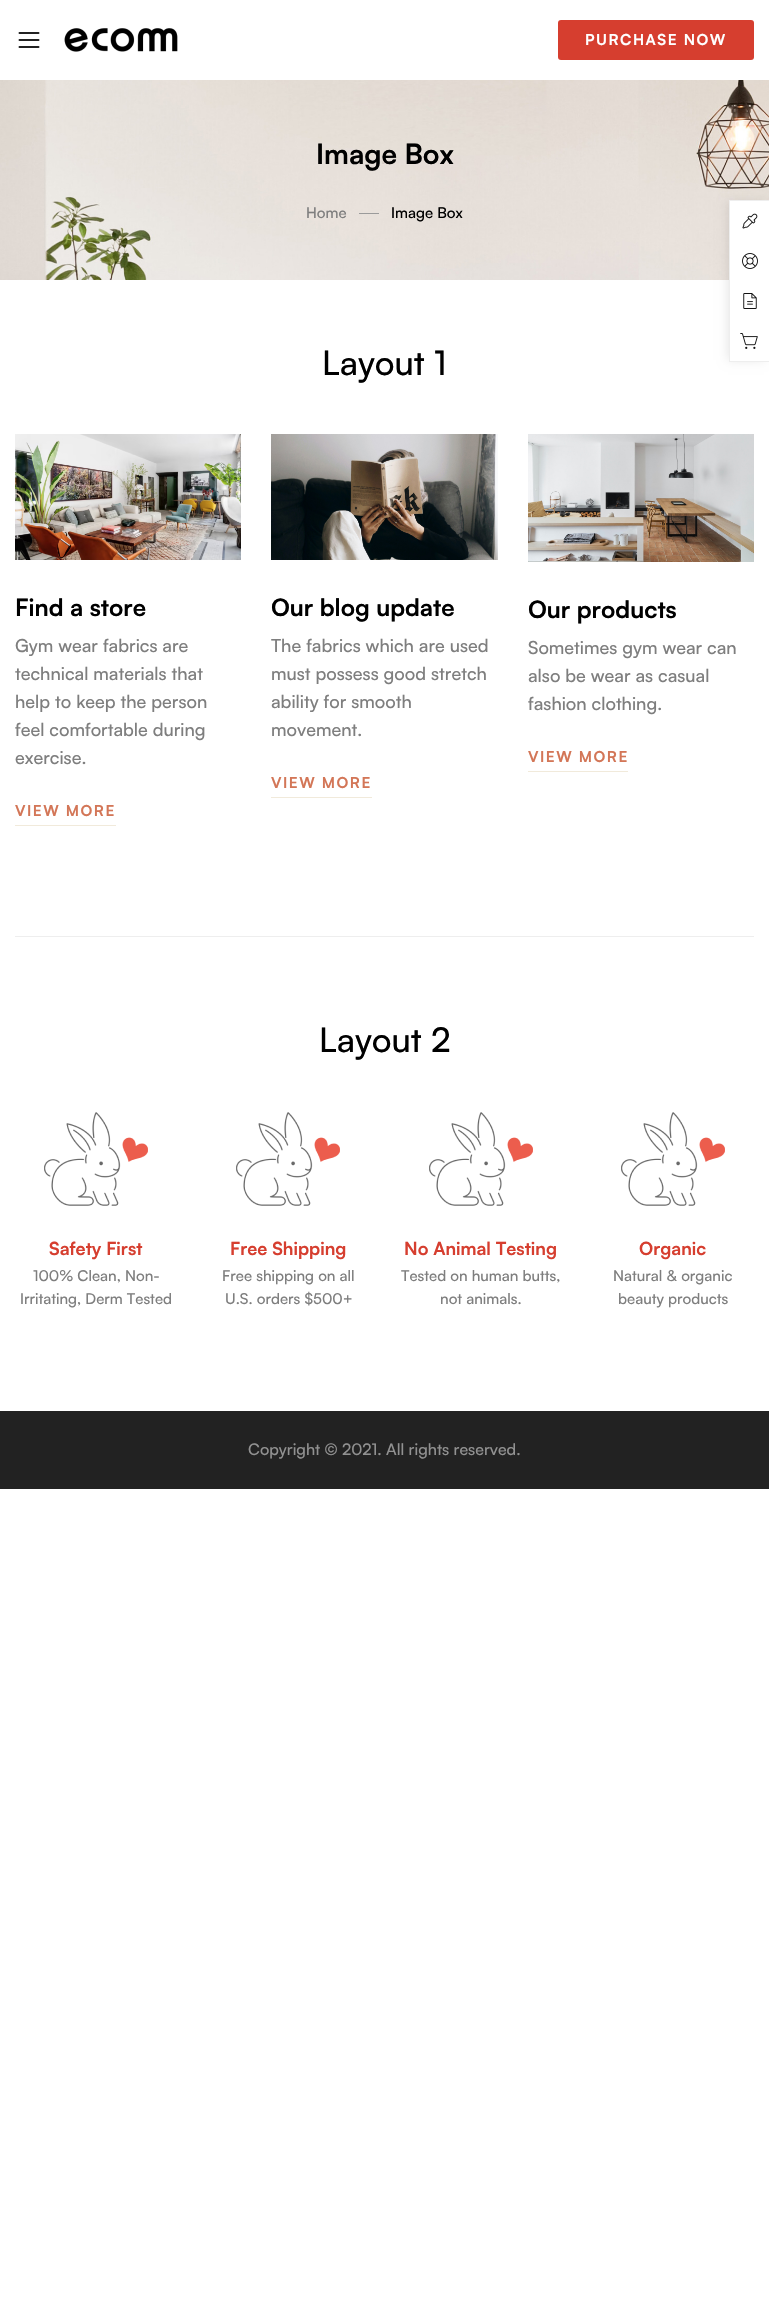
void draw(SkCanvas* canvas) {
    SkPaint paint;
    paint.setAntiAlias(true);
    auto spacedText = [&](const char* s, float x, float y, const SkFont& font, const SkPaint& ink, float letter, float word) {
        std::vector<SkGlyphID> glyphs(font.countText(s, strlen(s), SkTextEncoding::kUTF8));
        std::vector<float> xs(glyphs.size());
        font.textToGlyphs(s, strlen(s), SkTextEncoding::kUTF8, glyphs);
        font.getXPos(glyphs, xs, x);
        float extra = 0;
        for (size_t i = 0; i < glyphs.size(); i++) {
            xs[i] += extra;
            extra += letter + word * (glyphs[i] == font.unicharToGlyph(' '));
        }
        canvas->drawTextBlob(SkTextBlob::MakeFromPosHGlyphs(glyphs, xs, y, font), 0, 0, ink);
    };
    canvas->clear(0xFFFFFFFF);
    canvas->drawImageRect(SkImages::DeferredFromEncodedData(SkData::MakeFromFileName("img1.png")), SkRect::MakeXYWH(18, 32, 22, 16), SkSamplingOptions());
    canvas->drawImageRect(SkImages::DeferredFromEncodedData(SkData::MakeFromFileName("img2.png")), SkRect::MakeXYWH(64, 28, 114, 24), SkSamplingOptions());
    paint.setColor(0xFFD63E2F);
    canvas->drawRoundRect(SkRect::MakeXYWH(558, 20, 196, 40), 3, 3, paint);
    SkFont font1(fontMgr->matchFamilyStyle("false", SkFontStyle::Bold()), 15);
    font1.setSubpixel(true);
    paint.setColor(0xFFFFFFFF);
    spacedText("PURCHASE NOW", 585, 45, font1, paint, 1.5f, 0);
    canvas->drawImageRect(SkImages::DeferredFromEncodedData(SkData::MakeFromFileName("img3.png")), SkRect::MakeXYWH(0, 80, 769, 200), SkSamplingOptions());
    SkFont font2(fontMgr->matchFamilyStyle("false", SkFontStyle::Bold()), 28);
    font2.setSubpixel(true);
    paint.setColor(0xFF000000);
    canvas->drawString("Image Box", 316, 164, font2, paint);
    SkFont font3(fontMgr->matchFamilyStyle("Satoshi", SkFontStyle(500, SkFontStyle::kNormal_Width, SkFontStyle::kUpright_Slant)), 15);
    font3.setSubpixel(true);
    paint.setColor(0xFF7E7E7E);
    canvas->drawString("Home", 306, 218, font3, paint);
    paint.setColor(0xFF9B9B9B);
    canvas->drawRect(SkRect::MakeXYWH(359, 213, 20, 1), paint);
    paint.setColor(0xFF000000);
    canvas->drawString("Image Box", 391, 218, font3, paint);
    SkFont font4(fontMgr->matchFamilyStyle("Satoshi", SkFontStyle(500, SkFontStyle::kNormal_Width, SkFontStyle::kUpright_Slant)), 34);
    font4.setSubpixel(true);
    canvas->drawString("Layout 1", 322, 375, font4, paint);
    canvas->drawImageRect(SkImages::DeferredFromEncodedData(SkData::MakeFromFileName("img4.png")), SkRect::MakeXYWH(15, 434, 226, 126), SkSamplingOptions());
    SkFont font5(fontMgr->matchFamilyStyle("false", SkFontStyle::Bold()), 24);
    font5.setSubpixel(true);
    canvas->drawString("Find a store", 15, 616, font5, paint);
    SkFont font6(fontMgr->matchFamilyStyle("Satoshi", SkFontStyle(500, SkFontStyle::kNormal_Width, SkFontStyle::kUpright_Slant)), 18);
    font6.setSubpixel(true);
    paint.setColor(0xFF7E7E7E);
    canvas->drawString("Gym wear fabrics are", 15, 652, font6, paint);
    canvas->drawString("technical materials that", 15, 680, font6, paint);
    canvas->drawString("help to keep the person", 15, 708, font6, paint);
    canvas->drawString("feel comfortable during", 15, 736, font6, paint);
    canvas->drawString("exercise.", 15, 764, font6, paint);
    paint.setColor(0xFFD37657);
    spacedText("VIEW MORE", 15, 816, font1, paint, 1.5f, 0);
    paint.setColor(0xFFF1EADB);
    canvas->drawRect(SkRect::MakeXYWH(15, 825, 101, 1), paint);
    canvas->drawImageRect(SkImages::DeferredFromEncodedData(SkData::MakeFromFileName("img5.png")), SkRect::MakeXYWH(271, 434, 227, 126), SkSamplingOptions());
    paint.setColor(0xFF000000);
    canvas->drawString("Our blog update", 271, 616, font5, paint);
    paint.setColor(0xFF7E7E7E);
    canvas->drawString("The fabrics which are used", 271, 652, font6, paint);
    canvas->drawString("must possess good stretch", 271, 680, font6, paint);
    canvas->drawString("ability for smooth", 271, 708, font6, paint);
    canvas->drawString("movement.", 271, 736, font6, paint);
    paint.setColor(0xFFD37657);
    spacedText("VIEW MORE", 271, 788, font1, paint, 1.5f, 0);
    paint.setColor(0xFFF1EADB);
    canvas->drawRect(SkRect::MakeXYWH(271, 797, 101, 1), paint);
    canvas->drawImageRect(SkImages::DeferredFromEncodedData(SkData::MakeFromFileName("img6.png")), SkRect::MakeXYWH(528, 434, 226, 128), SkSamplingOptions());
    paint.setColor(0xFF000000);
    canvas->drawString("Our products", 528, 618, font5, paint);
    paint.setColor(0xFF7E7E7E);
    canvas->drawString("Sometimes gym wear can", 528, 654, font6, paint);
    canvas->drawString("also be wear as casual", 528, 682, font6, paint);
    canvas->drawString("fashion clothing.", 528, 710, font6, paint);
    paint.setColor(0xFFD37657);
    spacedText("VIEW MORE", 528, 762, font1, paint, 1.5f, 0);
    paint.setColor(0xFFF1EADB);
    canvas->drawRect(SkRect::MakeXYWH(528, 771, 100, 1), paint);
    paint.setColor(0xFFEEEEEE);
    canvas->drawRect(SkRect::MakeXYWH(15, 936, 739, 1), paint);
    paint.setColor(0xFF000000);
    canvas->drawString("Layout 2", 319, 1052, font4, paint);
    canvas->drawImageRect(SkImages::DeferredFromEncodedData(SkData::MakeFromFileName("img7.png")), SkRect::MakeXYWH(44, 1112, 104, 94), SkSamplingOptions());
    SkFont font7(fontMgr->matchFamilyStyle("false", SkFontStyle::Bold()), 18);
    font7.setSubpixel(true);
    paint.setColor(0xFFD63E2F);
    canvas->drawString("Safety First", 49, 1255, font7, paint);
    paint.setColor(0xFF7E7E7E);
    canvas->drawString("100% Clean, Non-", 33, 1281, font3, paint);
    canvas->drawString("Irritating, Derm Tested", 20, 1304, font3, paint);
    canvas->drawImageRect(SkImages::DeferredFromEncodedData(SkData::MakeFromFileName("img7.png")), SkRect::MakeXYWH(236, 1112, 104, 94), SkSamplingOptions());
    paint.setColor(0xFFD63E2F);
    canvas->drawString("Free Shipping", 230, 1255, font7, paint);
    paint.setColor(0xFF7E7E7E);
    canvas->drawString("Free shipping on all", 222, 1281, font3, paint);
    canvas->drawString("U.S. orders $500+", 225, 1304, font3, paint);
    canvas->drawImageRect(SkImages::DeferredFromEncodedData(SkData::MakeFromFileName("img7.png")), SkRect::MakeXYWH(429, 1112, 104, 94), SkSamplingOptions());
    paint.setColor(0xFFD63E2F);
    canvas->drawString("No Animal Testing", 404, 1255, font7, paint);
    paint.setColor(0xFF7E7E7E);
    canvas->drawString("Tested on human butts,", 401, 1281, font3, paint);
    canvas->drawString("not animals.", 440, 1304, font3, paint);
    canvas->drawImageRect(SkImages::DeferredFromEncodedData(SkData::MakeFromFileName("img7.png")), SkRect::MakeXYWH(621, 1112, 104, 94), SkSamplingOptions());
    paint.setColor(0xFFD63E2F);
    canvas->drawString("Organic", 639, 1255, font7, paint);
    paint.setColor(0xFF7E7E7E);
    canvas->drawString("Natural & organic", 613, 1281, font3, paint);
    canvas->drawString("beauty products", 618, 1304, font3, paint);
    paint.setColor(0xFF222222);
    canvas->drawRect(SkRect::MakeXYWH(0, 1411, 769, 78), paint);
    SkFont font8(fontMgr->matchFamilyStyle("Satoshi", SkFontStyle(500, SkFontStyle::kNormal_Width, SkFontStyle::kUpright_Slant)), 16);
    font8.setSubpixel(true);
    paint.setColor(0xFF919191);
    canvas->drawString("Copyright © 2021. All rights reserved.", 248, 1455, font8, paint);
    paint.setColor(0x1A000000);
    paint.setMaskFilter(SkMaskFilter::MakeBlur(kNormal_SkBlurStyle, 5));
    canvas->drawRect(SkRect::MakeXYWH(728, 202, 36, 158), paint);
    paint.setMaskFilter(nullptr);
    paint.setColor(0xFFFFFFFF);
    canvas->drawRect(SkRect::MakeXYWH(730, 201, 39, 160), paint);
    paint.setColor(0xFFEEEEEE);
    canvas->drawRect(SkRect::MakeXYWH(729, 200, 40, 1), paint);
    canvas->drawRect(SkRect::MakeXYWH(729, 361, 40, 1), paint);
    canvas->drawRect(SkRect::MakeXYWH(729, 200, 1, 162), paint);
    canvas->drawImageRect(SkImages::DeferredFromEncodedData(SkData::MakeFromFileName("img8.png")), SkRect::MakeXYWH(742, 213, 16, 16), SkSamplingOptions());
    canvas->drawImageRect(SkImages::DeferredFromEncodedData(SkData::MakeFromFileName("img9.png")), SkRect::MakeXYWH(742, 253, 16, 16), SkSamplingOptions());
    canvas->drawImageRect(SkImages::DeferredFromEncodedData(SkData::MakeFromFileName("img10.png")), SkRect::MakeXYWH(743, 293, 14, 16), SkSamplingOptions());
    canvas->drawImageRect(SkImages::DeferredFromEncodedData(SkData::MakeFromFileName("img11.png")), SkRect::MakeXYWH(740, 333, 18, 16), SkSamplingOptions());
}
